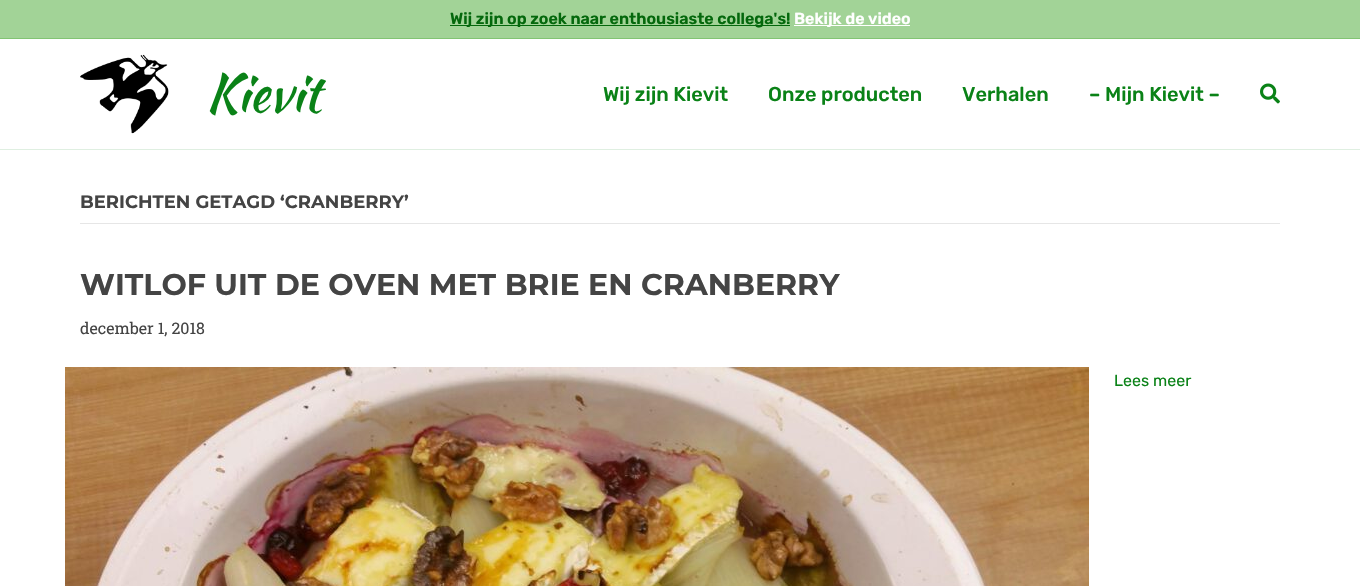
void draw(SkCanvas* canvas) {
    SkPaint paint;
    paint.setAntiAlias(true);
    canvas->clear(0xFFFFFFFF);
    paint.setColor(0xFFA2D397);
    canvas->drawRect(SkRect::MakeXYWH(0, 0, 1360, 38), paint);
    paint.setColor(0xFF82C473);
    canvas->drawRect(SkRect::MakeXYWH(0, 38, 1360, 1), paint);
    paint.setColor(0xFF04680C);
    canvas->drawRect(SkRect::MakeXYWH(450, 25, 340, 1), paint);
    SkFont font1(fontMgr->matchFamilyStyle("Rubik", SkFontStyle(600, SkFontStyle::kNormal_Width, SkFontStyle::kUpright_Slant)), 16);
    font1.setSubpixel(true);
    canvas->drawString("Wij zijn op zoek naar enthousiaste collega's!", 450, 24, font1, paint);
    paint.setColor(0xFFFFFFFF);
    canvas->drawRect(SkRect::MakeXYWH(794, 25, 116, 1), paint);
    canvas->drawString("Bekijk de video", 794, 24, font1, paint);
    paint.setColor(0xFFDFEFE1);
    canvas->drawRect(SkRect::MakeXYWH(0, 149, 1360, 1), paint);
    canvas->drawImageRect(SkImages::DeferredFromEncodedData(SkData::MakeFromFileName("img1.png")), SkRect::MakeXYWH(80, 54, 246, 80), SkSamplingOptions());
    SkFont font2(fontMgr->matchFamilyStyle("Rubik", SkFontStyle(500, SkFontStyle::kNormal_Width, SkFontStyle::kUpright_Slant)), 20);
    font2.setSubpixel(true);
    paint.setColor(0xFF0A8217);
    canvas->drawString("Wij zijn Kievit", 603, 101, font2, paint);
    canvas->drawString("Onze producten", 768, 101, font2, paint);
    canvas->drawString("Verhalen", 962, 101, font2, paint);
    canvas->drawString("– Mijn Kievit –", 1089, 101, font2, paint);
    canvas->drawImageRect(SkImages::DeferredFromEncodedData(SkData::MakeFromFileName("img2.png")), SkRect::MakeXYWH(1260, 83, 20, 21), SkSamplingOptions());
    paint.setColor(0xFFE6E6E6);
    canvas->drawRect(SkRect::MakeXYWH(80, 223, 1200, 1), paint);
    SkFont font3(fontMgr->matchFamilyStyle("Montserrat", SkFontStyle::Bold()), 18);
    font3.setSubpixel(true);
    paint.setColor(0xFF444444);
    canvas->drawString("BERICHTEN GETAGD ‘CRANBERRY’", 80, 208, font3, paint);
    SkFont font4(fontMgr->matchFamilyStyle("Montserrat", SkFontStyle::Bold()), 30);
    font4.setSubpixel(true);
    canvas->drawString("WITLOF UIT DE OVEN MET BRIE EN CRANBERRY", 80, 295, font4, paint);
    SkFont font5(fontMgr->matchFamilyStyle("Roboto Slab", SkFontStyle::Normal()), 16);
    font5.setSubpixel(true);
    canvas->drawString("december 1, 2018", 80, 334, font5, paint);
    canvas->drawImageRect(SkImages::DeferredFromEncodedData(SkData::MakeFromFileName("img3.png")), SkRect::MakeXYWH(65, 367, 1024, 219), SkSamplingOptions());
    SkFont font6(fontMgr->matchFamilyStyle("Rubik", SkFontStyle::Normal()), 16);
    font6.setSubpixel(true);
    paint.setColor(0xFF0A8217);
    canvas->drawString("Lees meer", 1114, 386, font6, paint);
}
